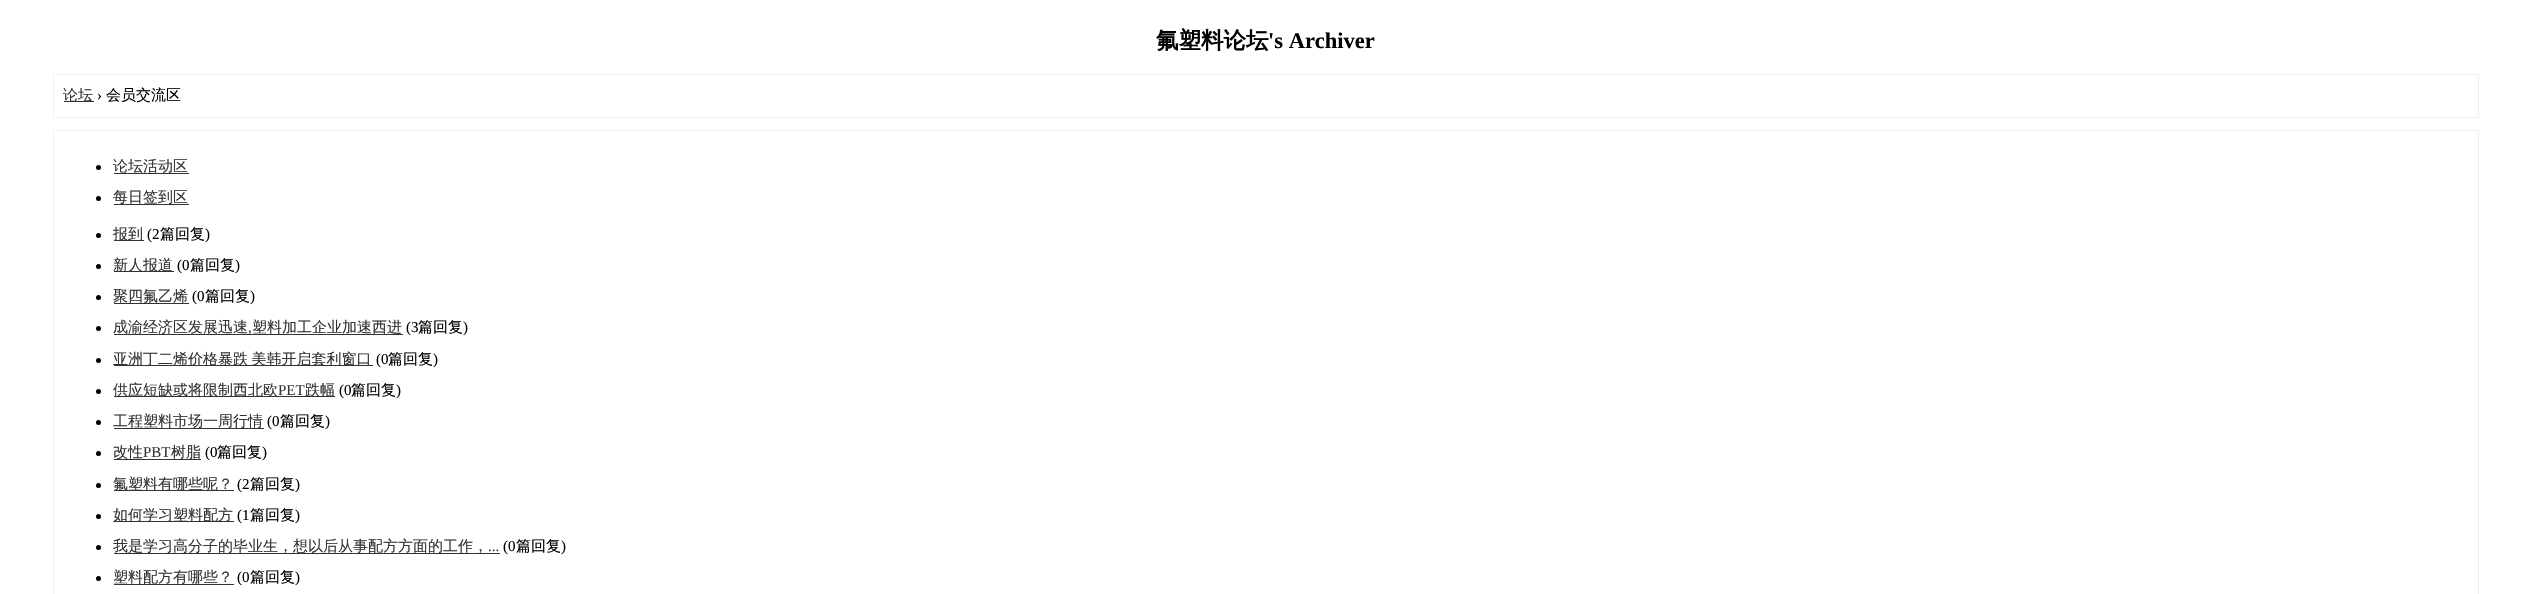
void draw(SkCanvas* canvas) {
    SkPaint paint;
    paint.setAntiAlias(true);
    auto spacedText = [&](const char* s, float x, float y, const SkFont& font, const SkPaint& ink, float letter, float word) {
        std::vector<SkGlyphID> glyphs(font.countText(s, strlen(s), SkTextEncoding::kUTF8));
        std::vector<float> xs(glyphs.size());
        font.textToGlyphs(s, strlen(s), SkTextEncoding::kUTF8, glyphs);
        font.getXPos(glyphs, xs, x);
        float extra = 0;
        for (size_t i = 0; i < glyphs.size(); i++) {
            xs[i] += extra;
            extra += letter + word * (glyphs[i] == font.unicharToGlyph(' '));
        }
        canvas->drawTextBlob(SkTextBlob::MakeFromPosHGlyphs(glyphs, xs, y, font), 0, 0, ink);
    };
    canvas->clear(0xFFFFFFFF);
    SkFont font1(fontMgr->matchFamilyStyle("WenQuanYi Zen Hei", SkFontStyle::Bold()), 22.5f);
    font1.setSubpixel(true);
    paint.setColor(0xFF000000);
    canvas->drawString("氟塑料论坛", 1156, 48, font1, paint);
    SkFont font2(fontMgr->matchFamilyStyle("Liberation Serif", SkFontStyle::Bold()), 22.5f);
    font2.setSubpixel(true);
    canvas->drawString("'s Archiver", 1268, 48, font2, paint);
    paint.setStyle(SkPaint::kStroke_Style);
    paint.setStrokeWidth(1);
    paint.setColor(0xFFEEEEEE);
    canvas->drawRect(SkRect::MakeXYWH(53.5f, 74.5f, 2425, 43), paint);
    paint.setStyle(SkPaint::kFill_Style);
    paint.setColor(0xFF333333);
    canvas->drawRect(SkRect::MakeXYWH(64, 101, 30, 1), paint);
    SkFont font3(fontMgr->matchFamilyStyle("WenQuanYi Zen Hei", SkFontStyle(500, SkFontStyle::kNormal_Width, SkFontStyle::kUpright_Slant)), 15);
    font3.setSubpixel(true);
    canvas->drawString("论坛", 63, 100, font3, paint);
    SkFont font4(fontMgr->matchFamilyStyle("Liberation Serif", SkFontStyle::Normal()), 15);
    font4.setSubpixel(true);
    paint.setColor(0xFF000000);
    canvas->drawString("›", 97, 100, font4, paint);
    canvas->drawString("会员交流区", 106, 100, font3, paint);
    paint.setStyle(SkPaint::kStroke_Style);
    paint.setColor(0xFFEEEEEE);
    canvas->drawRect(SkRect::MakeXYWH(53.5f, 130.5f, 2425, 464), paint);
    paint.setStyle(SkPaint::kFill_Style);
    paint.setColor(0xFF000000);
    canvas->drawCircle(98.5f, 167.5f, 2.5f, paint);
    paint.setColor(0xFF333333);
    canvas->drawRect(SkRect::MakeXYWH(114, 173, 75, 1), paint);
    canvas->drawString("论坛活动区", 113, 171, font3, paint);
    paint.setColor(0xFF000000);
    canvas->drawCircle(98.5f, 198.5f, 2.5f, paint);
    paint.setColor(0xFF333333);
    canvas->drawRect(SkRect::MakeXYWH(114, 204, 75, 1), paint);
    canvas->drawString("每日签到区", 113, 202, font3, paint);
    paint.setColor(0xFF000000);
    canvas->drawCircle(98.5f, 235.5f, 2.5f, paint);
    paint.setColor(0xFF333333);
    canvas->drawRect(SkRect::MakeXYWH(114, 240, 30, 1), paint);
    canvas->drawString("报到", 113, 239, font3, paint);
    paint.setColor(0xFF000000);
    canvas->drawString("(2", 147, 239, font4, paint);
    canvas->drawString("篇回复", 160, 239, font3, paint);
    canvas->drawString(")", 205, 239, font4, paint);
    canvas->drawCircle(98.5f, 266.5f, 2.5f, paint);
    paint.setColor(0xFF333333);
    canvas->drawRect(SkRect::MakeXYWH(114, 271, 60, 1), paint);
    canvas->drawString("新人报道", 113, 270, font3, paint);
    paint.setColor(0xFF000000);
    canvas->drawString("(0", 177, 270, font4, paint);
    canvas->drawString("篇回复", 190, 270, font3, paint);
    canvas->drawString(")", 235, 270, font4, paint);
    canvas->drawCircle(98.5f, 297.5f, 2.5f, paint);
    paint.setColor(0xFF333333);
    canvas->drawRect(SkRect::MakeXYWH(114, 303, 75, 1), paint);
    canvas->drawString("聚四氟乙烯", 113, 301, font3, paint);
    paint.setColor(0xFF000000);
    canvas->drawString("(0", 192, 301, font4, paint);
    canvas->drawString("篇回复", 205, 301, font3, paint);
    canvas->drawString(")", 250, 301, font4, paint);
    canvas->drawCircle(98.5f, 328.5f, 2.5f, paint);
    paint.setColor(0xFF333333);
    canvas->drawRect(SkRect::MakeXYWH(114, 334, 289, 1), paint);
    canvas->drawString("成渝经济区发展迅速", 113, 332, font3, paint);
    canvas->drawString("塑料加工企业加速西进", 252, 332, font3, paint);
    paint.setColor(0xFF000000);
    canvas->drawString("(3", 406, 332, font4, paint);
    canvas->drawString("篇回复", 418, 332, font3, paint);
    canvas->drawString(")", 463, 332, font4, paint);
    paint.setColor(0xFF333333);
    canvas->drawString(",", 248, 332, font4, paint);
    paint.setColor(0xFF000000);
    canvas->drawCircle(98.5f, 360.5f, 2.5f, paint);
    paint.setColor(0xFF333333);
    canvas->drawRect(SkRect::MakeXYWH(114, 365, 259, 1), paint);
    spacedText("亚洲丁二烯价格暴跌 美韩开启套利窗口", 113, 364, font3, paint, 0, -1);
    paint.setColor(0xFF000000);
    canvas->drawString("(0", 376, 364, font4, paint);
    canvas->drawString("篇回复", 388, 364, font3, paint);
    canvas->drawString(")", 433, 364, font4, paint);
    canvas->drawCircle(98.5f, 391.5f, 2.5f, paint);
    paint.setColor(0xFF333333);
    canvas->drawRect(SkRect::MakeXYWH(114, 396, 221, 1), paint);
    canvas->drawString("供应短缺或将限制西北欧", 113, 395, font3, paint);
    canvas->drawString("PET", 278, 395, font4, paint);
    canvas->drawString("跌幅", 305, 395, font3, paint);
    paint.setColor(0xFF000000);
    canvas->drawString("(0", 339, 395, font4, paint);
    canvas->drawString("篇回复", 351, 395, font3, paint);
    canvas->drawString(")", 396, 395, font4, paint);
    canvas->drawCircle(98.5f, 422.5f, 2.5f, paint);
    paint.setColor(0xFF333333);
    canvas->drawRect(SkRect::MakeXYWH(114, 428, 150, 1), paint);
    canvas->drawString("工程塑料市场一周行情", 113, 426, font3, paint);
    paint.setColor(0xFF000000);
    canvas->drawString("(0", 267, 426, font4, paint);
    canvas->drawString("篇回复", 280, 426, font3, paint);
    canvas->drawString(")", 325, 426, font4, paint);
    canvas->drawCircle(98.5f, 453.5f, 2.5f, paint);
    paint.setColor(0xFF333333);
    canvas->drawRect(SkRect::MakeXYWH(114, 459, 87, 1), paint);
    canvas->drawString("改性", 113, 457, font3, paint);
    canvas->drawString("PBT", 143, 457, font4, paint);
    canvas->drawString("树脂", 171, 457, font3, paint);
    paint.setColor(0xFF000000);
    canvas->drawString("(0", 205, 457, font4, paint);
    canvas->drawString("篇回复", 217, 457, font3, paint);
    canvas->drawString(")", 262, 457, font4, paint);
    canvas->drawCircle(98.5f, 485.5f, 2.5f, paint);
    paint.setColor(0xFF333333);
    canvas->drawRect(SkRect::MakeXYWH(114, 490, 120, 1), paint);
    canvas->drawString("氟塑料有哪些呢？", 113, 489, font3, paint);
    paint.setColor(0xFF000000);
    canvas->drawString("(2", 237, 489, font4, paint);
    canvas->drawString("篇回复", 250, 489, font3, paint);
    canvas->drawString(")", 295, 489, font4, paint);
    canvas->drawCircle(98.5f, 516.5f, 2.5f, paint);
    paint.setColor(0xFF333333);
    canvas->drawRect(SkRect::MakeXYWH(114, 521, 120, 1), paint);
    canvas->drawString("如何学习塑料配方", 113, 520, font3, paint);
    paint.setColor(0xFF000000);
    canvas->drawString("(1", 237, 520, font4, paint);
    canvas->drawString("篇回复", 250, 520, font3, paint);
    canvas->drawString(")", 295, 520, font4, paint);
    canvas->drawCircle(98.5f, 547.5f, 2.5f, paint);
    paint.setColor(0xFF333333);
    canvas->drawRect(SkRect::MakeXYWH(114, 553, 386, 1), paint);
    canvas->drawString("我是学习高分子的毕业生，想以后从事配方方面的工作，", 113, 551, font3, paint);
    paint.setColor(0xFF000000);
    canvas->drawString("(0", 503, 551, font4, paint);
    canvas->drawString("篇回复", 516, 551, font3, paint);
    canvas->drawString(")", 561, 551, font4, paint);
    paint.setColor(0xFF333333);
    canvas->drawString("...", 488, 551, font4, paint);
    paint.setColor(0xFF000000);
    canvas->drawCircle(98.5f, 578.5f, 2.5f, paint);
    paint.setColor(0xFF333333);
    canvas->drawString("塑料配方有哪些？", 113, 582, font3, paint);
    canvas->drawRect(SkRect::MakeXYWH(114, 584, 120, 1), paint);
    paint.setColor(0xFF000000);
    canvas->drawString("(0", 237, 582, font4, paint);
    canvas->drawString("篇回复", 250, 582, font3, paint);
    canvas->drawString(")", 295, 582, font4, paint);
}
